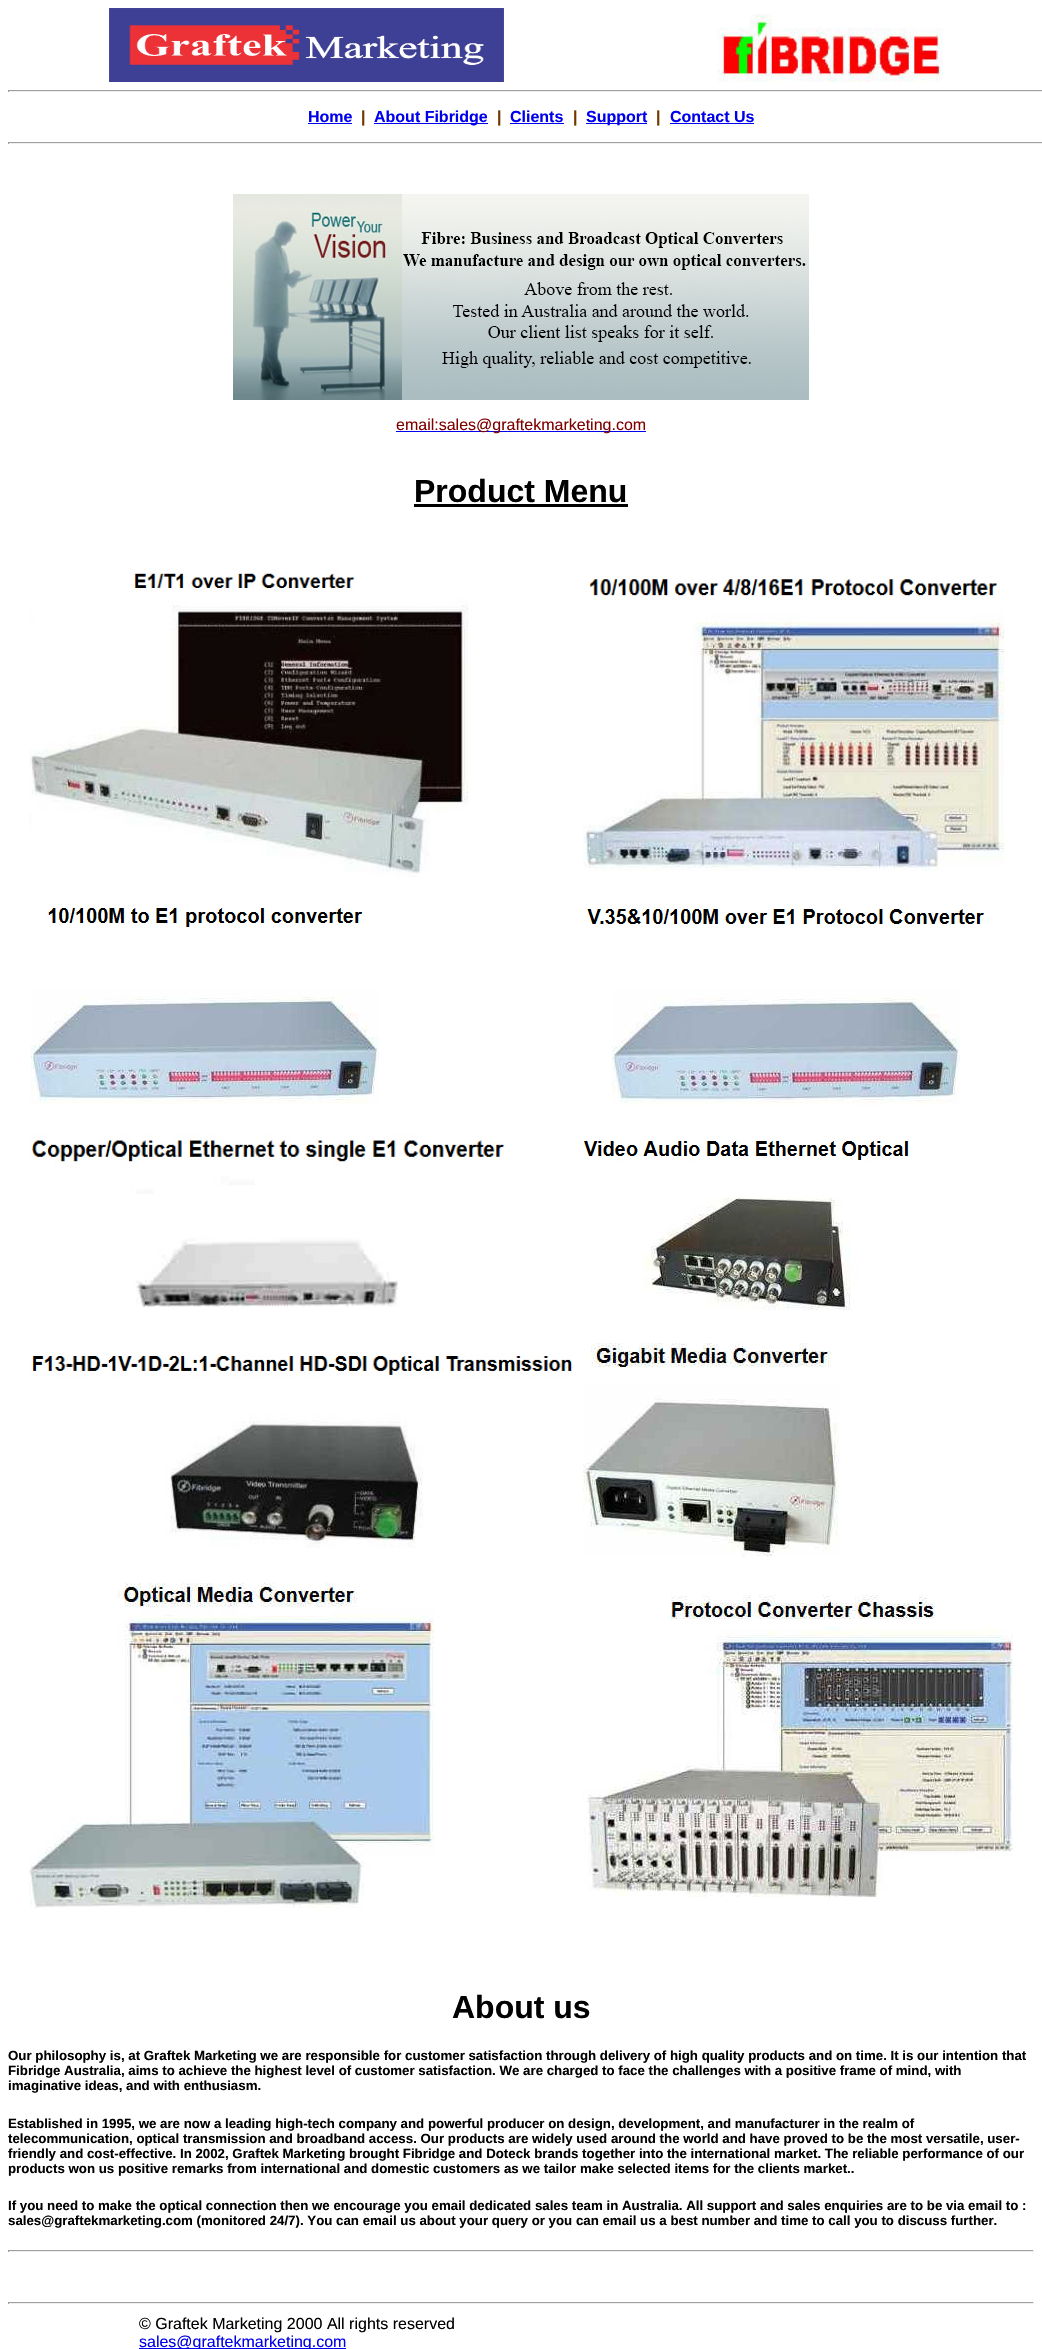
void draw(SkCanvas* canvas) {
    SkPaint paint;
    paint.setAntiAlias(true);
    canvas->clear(0xFFFFFFFF);
    canvas->drawImageRect(SkImages::DeferredFromEncodedData(SkData::MakeFromFileName("img1.png")), SkRect::MakeXYWH(109, 8, 395, 74), SkSamplingOptions());
    canvas->drawImageRect(SkImages::DeferredFromEncodedData(SkData::MakeFromFileName("img2.png")), SkRect::MakeXYWH(717, 14, 226, 68), SkSamplingOptions());
    paint.setColor(0xFF9F9F9F);
    canvas->drawRect(SkRect::MakeXYWH(8, 90, 1034, 1), paint);
    paint.setColor(0xFFEEEEEE);
    canvas->drawRect(SkRect::MakeXYWH(8, 91, 1034, 1), paint);
    paint.setColor(0xFF9F9F9F);
    canvas->drawRect(SkRect::MakeXYWH(8, 90, 1, 2), paint);
    SkFont font1(fontMgr->matchFamilyStyle("Liberation Sans", SkFontStyle::Bold()), 16);
    font1.setSubpixel(true);
    paint.setColor(0xFF0000EE);
    canvas->drawString("Home", 308, 122, font1, paint);
    canvas->drawRect(SkRect::MakeXYWH(308, 123, 44, 1), paint);
    paint.setColor(0xFF713800);
    canvas->drawString("|", 361, 122, font1, paint);
    paint.setColor(0xFF0000EE);
    canvas->drawRect(SkRect::MakeXYWH(374, 123, 114, 1), paint);
    canvas->drawString("About Fibridge", 374, 122, font1, paint);
    paint.setColor(0xFF713800);
    canvas->drawString("|", 497, 122, font1, paint);
    paint.setColor(0xFF0000EE);
    canvas->drawString("Clients", 510, 122, font1, paint);
    canvas->drawRect(SkRect::MakeXYWH(510, 123, 54, 1), paint);
    paint.setColor(0xFF713800);
    canvas->drawString("|", 573, 122, font1, paint);
    paint.setColor(0xFF0000EE);
    canvas->drawRect(SkRect::MakeXYWH(586, 123, 61, 1), paint);
    canvas->drawString("Support", 586, 122, font1, paint);
    paint.setColor(0xFF713800);
    canvas->drawString("|", 656, 122, font1, paint);
    paint.setColor(0xFF0000EE);
    canvas->drawString("Contact Us", 670, 122, font1, paint);
    canvas->drawRect(SkRect::MakeXYWH(670, 123, 84, 1), paint);
    paint.setColor(0xFF9F9F9F);
    canvas->drawRect(SkRect::MakeXYWH(8, 142, 1034, 1), paint);
    paint.setColor(0xFFEEEEEE);
    canvas->drawRect(SkRect::MakeXYWH(8, 143, 1034, 1), paint);
    paint.setColor(0xFF9F9F9F);
    canvas->drawRect(SkRect::MakeXYWH(8, 142, 1, 2), paint);
    canvas->drawImageRect(SkImages::DeferredFromEncodedData(SkData::MakeFromFileName("img3.png")), SkRect::MakeXYWH(233, 194, 576, 206), SkSamplingOptions());
    paint.setColor(0xFF0000EE);
    canvas->drawRect(SkRect::MakeXYWH(396, 431, 250, 1), paint);
    SkFont font2(fontMgr->matchFamilyStyle("Liberation Sans", SkFontStyle::Normal()), 16);
    font2.setSubpixel(true);
    paint.setColor(0xFF800000);
    canvas->drawString("email:sales@graftekmarketing.com", 396, 430, font2, paint);
    SkFont font3(fontMgr->matchFamilyStyle("Liberation Sans", SkFontStyle::Bold()), 32);
    font3.setSubpixel(true);
    paint.setColor(0xFF000000);
    canvas->drawString("Product Menu", 414, 502, font3, paint);
    canvas->drawRect(SkRect::MakeXYWH(414, 504, 214, 3), paint);
    canvas->drawImageRect(SkImages::DeferredFromEncodedData(SkData::MakeFromFileName("img4.png")), SkRect::MakeXYWH(29, 569, 439, 308), SkSamplingOptions());
    canvas->drawImageRect(SkImages::DeferredFromEncodedData(SkData::MakeFromFileName("img5.png")), SkRect::MakeXYWH(583, 575, 422, 296), SkSamplingOptions());
    canvas->drawImageRect(SkImages::DeferredFromEncodedData(SkData::MakeFromFileName("img6.png")), SkRect::MakeXYWH(29, 903, 350, 201), SkSamplingOptions());
    canvas->drawImageRect(SkImages::DeferredFromEncodedData(SkData::MakeFromFileName("img7.png")), SkRect::MakeXYWH(583, 903, 401, 202), SkSamplingOptions());
    canvas->drawImageRect(SkImages::DeferredFromEncodedData(SkData::MakeFromFileName("img8.png")), SkRect::MakeXYWH(29, 1134, 475, 173), SkSamplingOptions());
    canvas->drawImageRect(SkImages::DeferredFromEncodedData(SkData::MakeFromFileName("img9.png")), SkRect::MakeXYWH(583, 1139, 326, 172), SkSamplingOptions());
    canvas->drawImageRect(SkImages::DeferredFromEncodedData(SkData::MakeFromFileName("img10.png")), SkRect::MakeXYWH(29, 1354, 544, 194), SkSamplingOptions());
    canvas->drawImageRect(SkImages::DeferredFromEncodedData(SkData::MakeFromFileName("img11.png")), SkRect::MakeXYWH(583, 1343, 256, 214), SkSamplingOptions());
    canvas->drawImageRect(SkImages::DeferredFromEncodedData(SkData::MakeFromFileName("img12.png")), SkRect::MakeXYWH(29, 1583, 405, 326), SkSamplingOptions());
    canvas->drawImageRect(SkImages::DeferredFromEncodedData(SkData::MakeFromFileName("img13.png")), SkRect::MakeXYWH(583, 1595, 430, 302), SkSamplingOptions());
    canvas->drawString("About us", 452, 2018, font3, paint);
    SkFont font4(fontMgr->matchFamilyStyle("Liberation Sans", SkFontStyle::Bold()), 13.28f);
    font4.setSubpixel(true);
    canvas->drawString("Our philosophy is, at Graftek Marketing we are responsible for customer satisfaction through delivery of high quality products and on time. It is our intention that", 8, 2060, font4, paint);
    canvas->drawString("Fibridge Australia, aims to achieve the highest level of customer satisfaction. We are charged to face the challenges with a positive frame of mind, with", 8, 2075, font4, paint);
    canvas->drawString("imaginative ideas, and with enthusiasm.", 8, 2090, font4, paint);
    canvas->drawString("Established in 1995, we are now a leading high-tech company and powerful producer on design, development, and manufacturer in the realm of", 8, 2128, font4, paint);
    canvas->drawString("telecommunication, optical transmission and broadband access. Our products are widely used around the world and have proved to be the most versatile, user-", 8, 2143, font4, paint);
    canvas->drawString("friendly and cost-effective. In 2002, Graftek Marketing brought Fibridge and Doteck brands together into the international market. The reliable performance of our", 8, 2158, font4, paint);
    canvas->drawString("products won us positive remarks from international and domestic customers as we tailor make selected items for the clients market..", 8, 2173, font4, paint);
    canvas->drawString("If you need to make the optical connection then we encourage you email dedicated sales team in Australia. All support and sales enquiries are to be via email to :", 8, 2210, font4, paint);
    canvas->drawString("sales@graftekmarketing.com (monitored 24/7). You can email us about your query or you can email us a best number and time to call you to discuss further.", 8, 2225, font4, paint);
    paint.setColor(0xFF9F9F9F);
    canvas->drawRect(SkRect::MakeXYWH(8, 2250, 1026, 1), paint);
    paint.setColor(0xFFEEEEEE);
    canvas->drawRect(SkRect::MakeXYWH(1033, 2250, 1, 2), paint);
    canvas->drawRect(SkRect::MakeXYWH(8, 2251, 1026, 1), paint);
    paint.setColor(0xFF9F9F9F);
    canvas->drawRect(SkRect::MakeXYWH(8, 2250, 1, 2), paint);
    canvas->drawRect(SkRect::MakeXYWH(8, 2302, 1026, 1), paint);
    paint.setColor(0xFFEEEEEE);
    canvas->drawRect(SkRect::MakeXYWH(1033, 2302, 1, 2), paint);
    canvas->drawRect(SkRect::MakeXYWH(8, 2303, 1026, 1), paint);
    paint.setColor(0xFF9F9F9F);
    canvas->drawRect(SkRect::MakeXYWH(8, 2302, 1, 2), paint);
    paint.setColor(0xFF000000);
    canvas->drawString("© Graftek Marketing 2000 All rights reserved", 139, 2329, font2, paint);
    paint.setColor(0xFF0000EE);
    canvas->drawRect(SkRect::MakeXYWH(139, 2348, 207, 1), paint);
    canvas->drawString("sales@graftekmarketing.com", 139, 2347, font2, paint);
}
